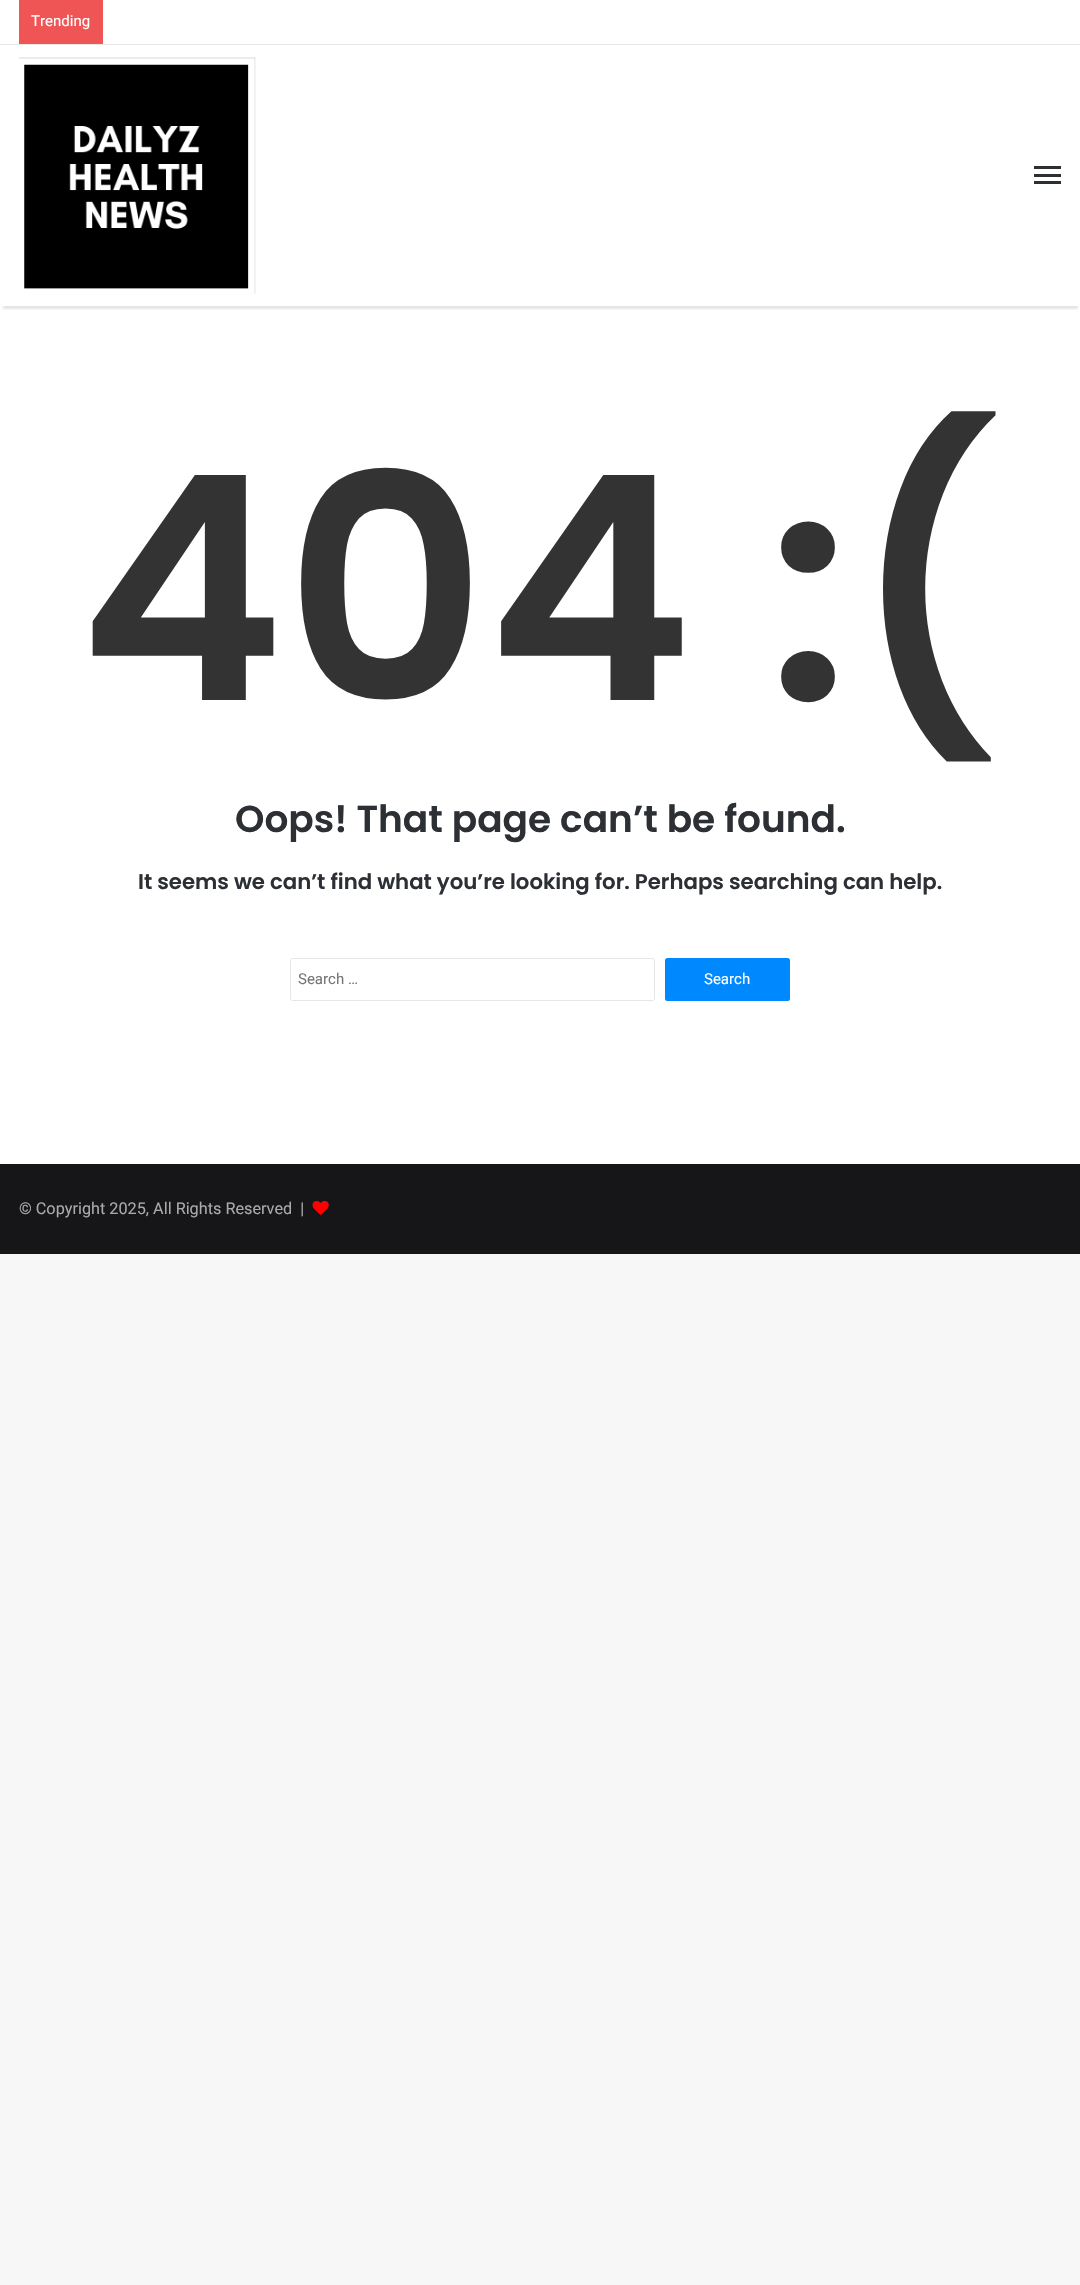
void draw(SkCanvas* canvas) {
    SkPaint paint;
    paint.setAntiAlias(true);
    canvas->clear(0xFFF7F7F7);
    paint.setColor(0xFFFFFFFF);
    canvas->drawRect(SkRect::MakeXYWH(0, 0, 1080, 1164), paint);
    paint.setColor(0xFFE6E6E6);
    canvas->drawRect(SkRect::MakeXYWH(0, 44, 1080, 1), paint);
    paint.setColor(0xFFF05555);
    canvas->drawRect(SkRect::MakeXYWH(19, 0, 84, 44), paint);
    SkFont font1(fontMgr->matchFamilyStyle("Roboto", SkFontStyle::Normal()), 15);
    font1.setSubpixel(true);
    paint.setColor(0xFFFFFFFF);
    canvas->drawString("Trending", 31, 26, font1, paint);
    canvas->save();
    canvas->clipRect(SkRect::MakeXYWH(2, 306, 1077, 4));
    paint.setColor(0x1A000000);
    paint.setMaskFilter(SkMaskFilter::MakeBlur(kNormal_SkBlurStyle, 1));
    canvas->drawRect(SkRect::MakeXYWH(3, 53, 1075, 256), paint);
    paint.setMaskFilter(nullptr);
    canvas->restore();
    canvas->drawImageRect(SkImages::DeferredFromEncodedData(SkData::MakeFromFileName("img1.png")), SkRect::MakeXYWH(18, 57, 238, 237), SkSamplingOptions());
    paint.setColor(0xFF2C2F34);
    canvas->drawRect(SkRect::MakeXYWH(1034, 174, 27, 3), paint);
    canvas->drawRect(SkRect::MakeXYWH(1034, 166, 27, 3), paint);
    canvas->drawRect(SkRect::MakeXYWH(1034, 181, 27, 3), paint);
    SkFont font2(fontMgr->matchFamilyStyle("Poppins", SkFontStyle(600, SkFontStyle::kNormal_Width, SkFontStyle::kUpright_Slant)), 312.5f);
    font2.setSubpixel(true);
    paint.setColor(0xFF333333);
    canvas->drawString("404 :(", 78, 700, font2, paint);
    SkFont font3(fontMgr->matchFamilyStyle("Poppins", SkFontStyle(600, SkFontStyle::kNormal_Width, SkFontStyle::kUpright_Slant)), 37.5f);
    font3.setSubpixel(true);
    paint.setColor(0xFF2C2F34);
    canvas->drawString("Oops! That page can’t be found.", 235, 832, font3, paint);
    SkFont font4(fontMgr->matchFamilyStyle("Poppins", SkFontStyle(600, SkFontStyle::kNormal_Width, SkFontStyle::kUpright_Slant)), 21.25f);
    font4.setSubpixel(true);
    canvas->drawString("It seems we can’t find what you’re looking for. Perhaps searching can help.", 138, 889, font4, paint);
    paint.setStyle(SkPaint::kStroke_Style);
    paint.setStrokeWidth(1);
    paint.setColor(0xFFE6E6E6);
    canvas->drawRoundRect(SkRect::MakeXYWH(290.5f, 958.5f, 364, 42), 2, 2, paint);
    paint.setStyle(SkPaint::kFill_Style);
    paint.setColor(0xFF757575);
    canvas->drawString("Search …", 298, 984, font1, paint);
    paint.setColor(0xFF0088FF);
    canvas->drawRoundRect(SkRect::MakeXYWH(665, 958, 125, 43), 2.5f, 2.5f, paint);
    paint.setColor(0xFFFFFFFF);
    canvas->drawString("Search", 704, 984, font1, paint);
    paint.setColor(0xFF161619);
    canvas->drawRect(SkRect::MakeXYWH(0, 1164, 1080, 90), paint);
    SkFont font5(fontMgr->matchFamilyStyle("Roboto", SkFontStyle::Normal()), 16.25f);
    font5.setSubpixel(true);
    paint.setColor(0xFFAAAAAA);
    canvas->drawString("© Copyright 2025, All Rights Reserved  |", 19, 1214, font5, paint);
    canvas->drawImageRect(SkImages::DeferredFromEncodedData(SkData::MakeFromFileName("img2.png")), SkRect::MakeXYWH(312, 1201, 17, 14), SkSamplingOptions());
}
